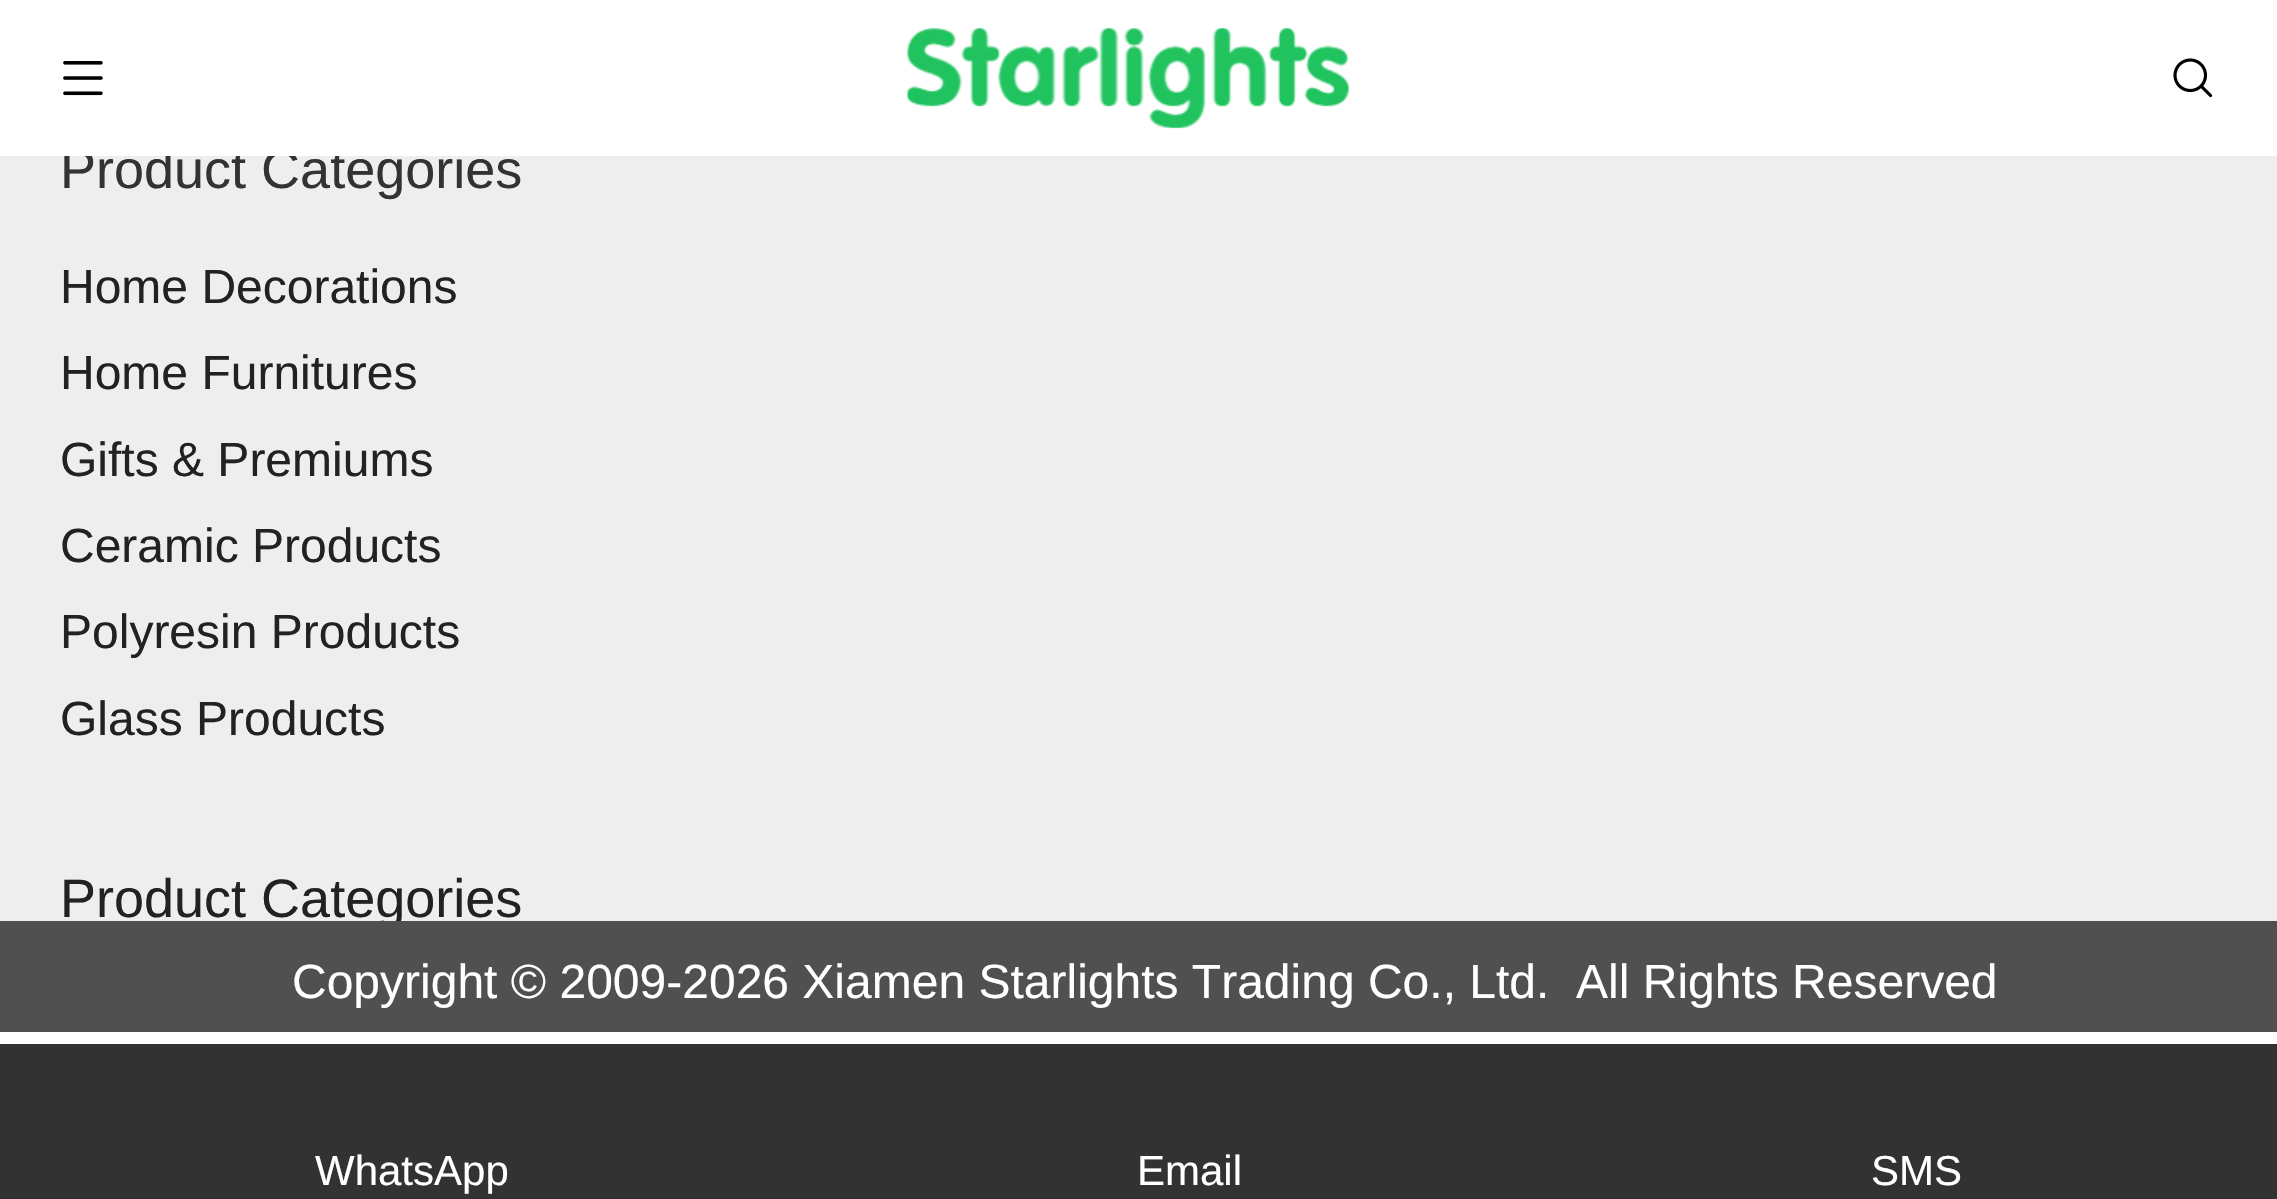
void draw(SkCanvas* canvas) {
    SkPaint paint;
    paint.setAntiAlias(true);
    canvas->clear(0xFFFFFFFF);
    paint.setColor(0xFFEEEEEE);
    canvas->drawRect(SkRect::MakeXYWH(0, 156, 2277, 765), paint);
    SkFont font1(fontMgr->matchFamilyStyle("Liberation Sans", SkFontStyle::Normal()), 54);
    font1.setSubpixel(true);
    paint.setColor(0xFF333333);
    canvas->drawString("Product Categories", 60, 188, font1, paint);
    paint.setColor(0xFFFFFFFF);
    canvas->drawRect(SkRect::MakeXYWH(64, 148, 398, 8), paint);
    canvas->drawImageRect(SkImages::DeferredFromEncodedData(SkData::MakeFromFileName("img1.png")), SkRect::MakeXYWH(63, 61, 40, 35), SkSamplingOptions());
    canvas->drawImageRect(SkImages::DeferredFromEncodedData(SkData::MakeFromFileName("img2.png")), SkRect::MakeXYWH(907, 28, 443, 101), SkSamplingOptions());
    canvas->drawImageRect(SkImages::DeferredFromEncodedData(SkData::MakeFromFileName("img3.png")), SkRect::MakeXYWH(2173, 58, 40, 40), SkSamplingOptions());
    SkFont font2(fontMgr->matchFamilyStyle("Liberation Sans", SkFontStyle::Normal()), 48);
    font2.setSubpixel(true);
    paint.setColor(0xFF222222);
    canvas->drawString("Home Decorations", 60, 303, font2, paint);
    canvas->drawString("Home Furnitures", 60, 389, font2, paint);
    canvas->drawString("Gifts & Premiums", 60, 476, font2, paint);
    canvas->drawString("Ceramic Products", 60, 562, font2, paint);
    canvas->drawString("Polyresin Products", 60, 648, font2, paint);
    canvas->drawString("Glass Products", 60, 735, font2, paint);
    canvas->save();
    canvas->clipRect(SkRect::MakeXYWH(0, 39, 2277, 882));
    canvas->drawString("Product Categories", 60, 917, font1, paint);
    canvas->restore();
    paint.setColor(0xFF323232);
    canvas->drawRect(SkRect::MakeXYWH(0, 1044, 2277, 155), paint);
    SkFont font3(fontMgr->matchFamilyStyle("Liberation Sans", SkFontStyle::Normal()), 42);
    font3.setSubpixel(true);
    paint.setColor(0xFFFFFFFF);
    canvas->drawString("WhatsApp", 315, 1185, font3, paint);
    canvas->drawString("Email", 1137, 1185, font3, paint);
    canvas->drawString("SMS", 1871, 1185, font3, paint);
    paint.setColor(0xFF515050);
    canvas->drawRect(SkRect::MakeXYWH(0, 921, 2277, 111), paint);
    paint.setColor(0xFFFFFFFF);
    canvas->drawString("Copyright © 2009-2026 Xiamen Starlights Trading Co., Ltd.  All Rights Reserved", 292, 998, font2, paint);
}
